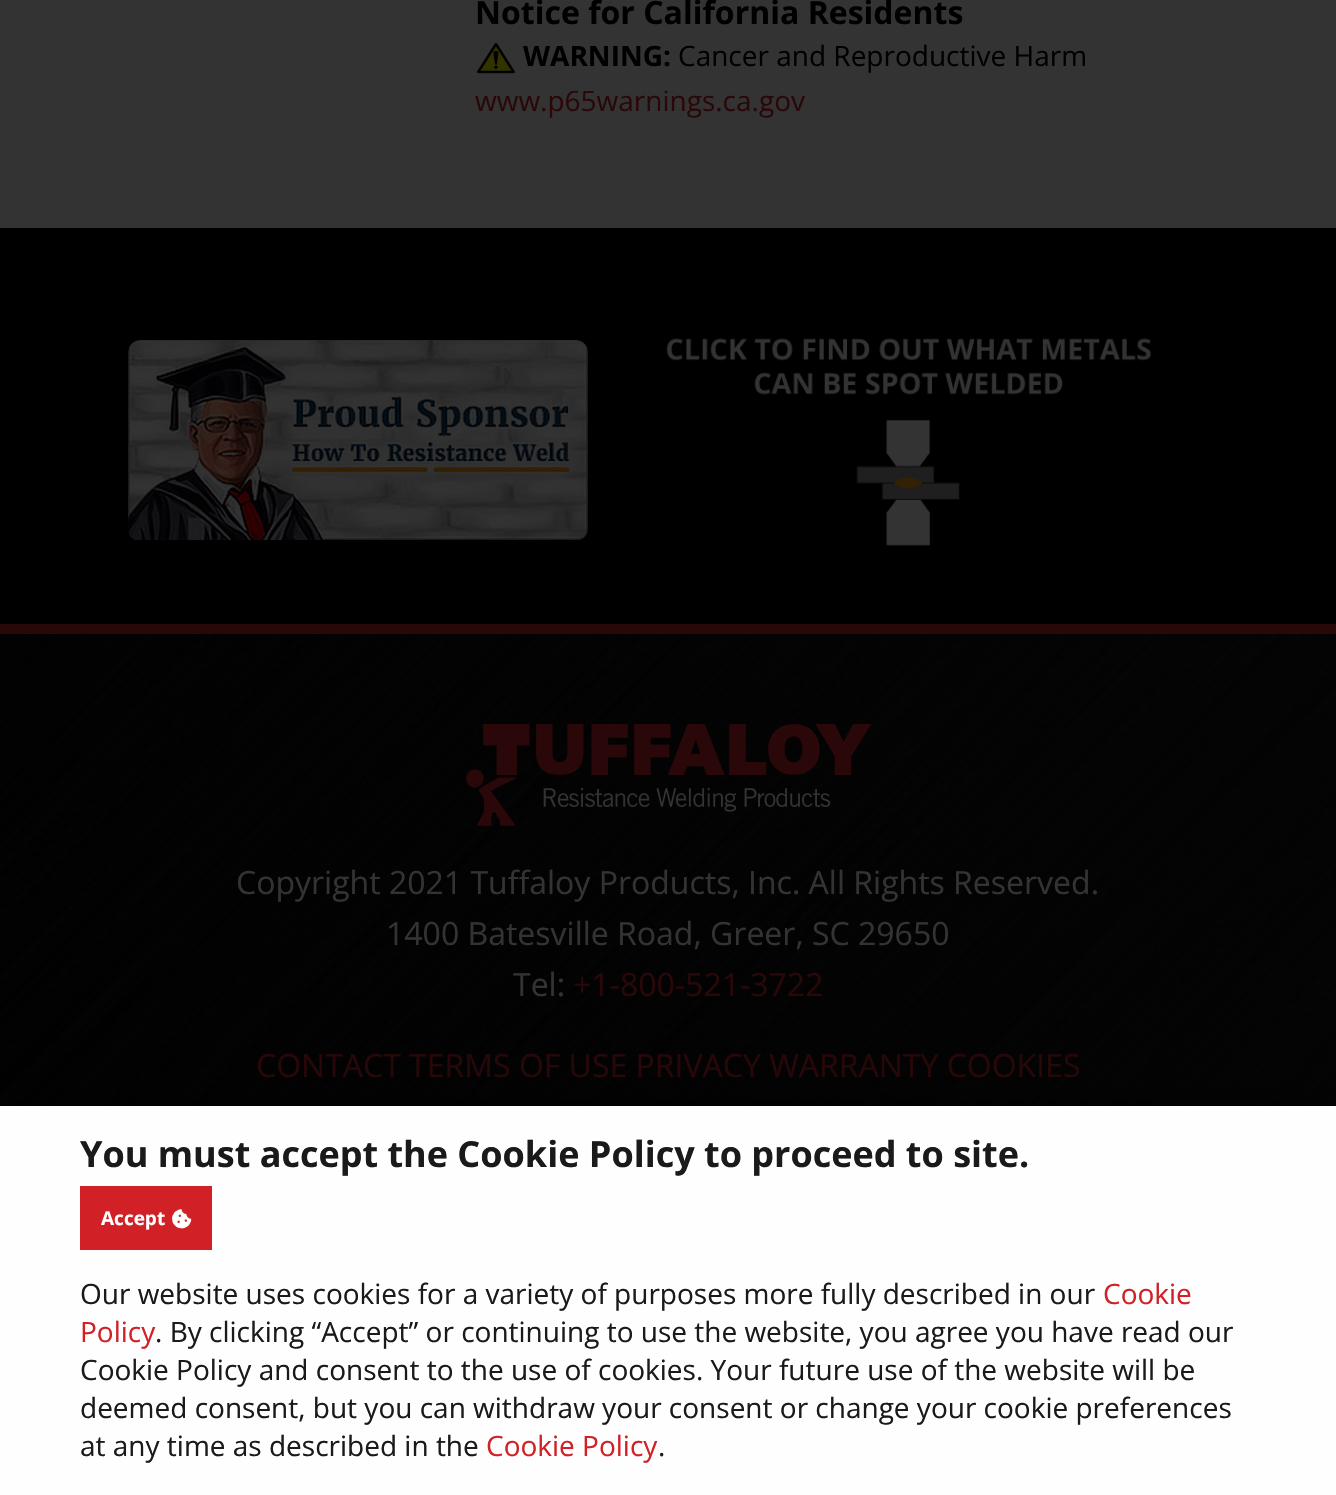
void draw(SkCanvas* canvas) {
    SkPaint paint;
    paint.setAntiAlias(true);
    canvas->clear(0xFF333333);
    SkFont font1(fontMgr->matchFamilyStyle("Open Sans", SkFontStyle::Bold()), 32);
    font1.setSubpixel(true);
    paint.setColor(0xFF000000);
    canvas->drawString("Notice for California Residents", 475, 24, font1, paint);
    canvas->drawImageRect(SkImages::DeferredFromEncodedData(SkData::MakeFromFileName("img1.png")), SkRect::MakeXYWH(476, 42, 40, 32), SkSamplingOptions());
    SkFont font2(fontMgr->matchFamilyStyle("Open Sans", SkFontStyle::Bold()), 28);
    font2.setSubpixel(true);
    canvas->drawString("WARNING:", 523, 66, font2, paint);
    SkFont font3(fontMgr->matchFamilyStyle("Open Sans", SkFontStyle::Normal()), 28);
    font3.setSubpixel(true);
    canvas->drawString("Cancer and Reproductive Harm", 678, 66, font3, paint);
    paint.setColor(0xFF2A0708);
    canvas->drawString("www.p65warnings.ca.gov", 475, 111, font3, paint);
    paint.setColor(0xFF000000);
    canvas->drawRect(SkRect::MakeXYWH(0, 228, 1336, 396), paint);
    canvas->drawImageRect(SkImages::DeferredFromEncodedData(SkData::MakeFromFileName("img2.png")), SkRect::MakeXYWH(128, 340, 460, 200), SkSamplingOptions());
    canvas->drawImageRect(SkImages::DeferredFromEncodedData(SkData::MakeFromFileName("img3.png")), SkRect::MakeXYWH(666, 338, 485, 208), SkSamplingOptions());
    canvas->drawImageRect(SkImages::DeferredFromEncodedData(SkData::MakeFromFileName("img4.png")), SkRect::MakeXYWH(0, 634, 1336, 472), SkSamplingOptions());
    paint.setColor(0xFF2A0708);
    canvas->drawRect(SkRect::MakeXYWH(0, 624, 1336, 10), paint);
    canvas->drawImageRect(SkImages::DeferredFromEncodedData(SkData::MakeFromFileName("img5.png")), SkRect::MakeXYWH(466, 724, 406, 102), SkSamplingOptions());
    SkFont font4(fontMgr->matchFamilyStyle("Open Sans", SkFontStyle::Normal()), 32);
    font4.setSubpixel(true);
    paint.setColor(0xFF333333);
    canvas->drawString("Copyright 2021 Tuffaloy Products, Inc. All Rights Reserved.", 236, 894, font4, paint);
    canvas->drawString("1400 Batesville Road, Greer, SC 29650", 386, 945, font4, paint);
    canvas->drawString("Tel:", 513, 996, font4, paint);
    paint.setColor(0xFF2A0708);
    canvas->drawString("+1-800-521-3722", 573, 996, font4, paint);
    canvas->drawString("CONTACT TERMS OF USE PRIVACY WARRANTY COOKIES", 256, 1077, font4, paint);
    paint.setColor(0x66000000);
    paint.setMaskFilter(SkMaskFilter::MakeBlur(kNormal_SkBlurStyle, 30));
    canvas->drawRect(SkRect::MakeXYWH(0, 1106, 1336, 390), paint);
    paint.setMaskFilter(nullptr);
    paint.setColor(0xFFFEFEFE);
    canvas->drawRect(SkRect::MakeXYWH(0, 1106, 1336, 389), paint);
    SkFont font5(fontMgr->matchFamilyStyle("Open Sans", SkFontStyle::Bold()), 36);
    font5.setSubpixel(true);
    paint.setColor(0xFF1A1A1A);
    canvas->drawString("You must accept the Cookie Policy to proceed to site.", 80, 1167, font5, paint);
    paint.setColor(0xFFD12127);
    canvas->drawRect(SkRect::MakeXYWH(80, 1186, 132, 64), paint);
    SkFont font6(fontMgr->matchFamilyStyle("Open Sans", SkFontStyle::Bold()), 19);
    font6.setSubpixel(true);
    paint.setColor(0xFFFFFFFF);
    canvas->drawString("Accept", 101, 1225, font6, paint);
    canvas->drawImageRect(SkImages::DeferredFromEncodedData(SkData::MakeFromFileName("img6.png")), SkRect::MakeXYWH(172, 1209, 20, 20), SkSamplingOptions());
    paint.setColor(0xFF1A1A1A);
    canvas->drawString("Our website uses cookies for a variety of purposes more fully described in our", 80, 1304, font3, paint);
    paint.setColor(0xFFD12127);
    canvas->drawString("Cookie", 1103, 1304, font3, paint);
    canvas->drawString("Policy", 80, 1342, font3, paint);
    paint.setColor(0xFF1A1A1A);
    canvas->drawString(". By clicking “Accept” or continuing to use the website, you agree you have read our", 155, 1342, font3, paint);
    canvas->drawString("Cookie Policy and consent to the use of cookies. Your future use of the website will be", 80, 1380, font3, paint);
    canvas->drawString("deemed consent, but you can withdraw your consent or change your cookie preferences", 80, 1418, font3, paint);
    canvas->drawString("at any time as described in the", 80, 1456, font3, paint);
    paint.setColor(0xFFD12127);
    canvas->drawString("Cookie Policy", 486, 1456, font3, paint);
    paint.setColor(0xFF1A1A1A);
    canvas->drawString(".", 658, 1456, font3, paint);
}
